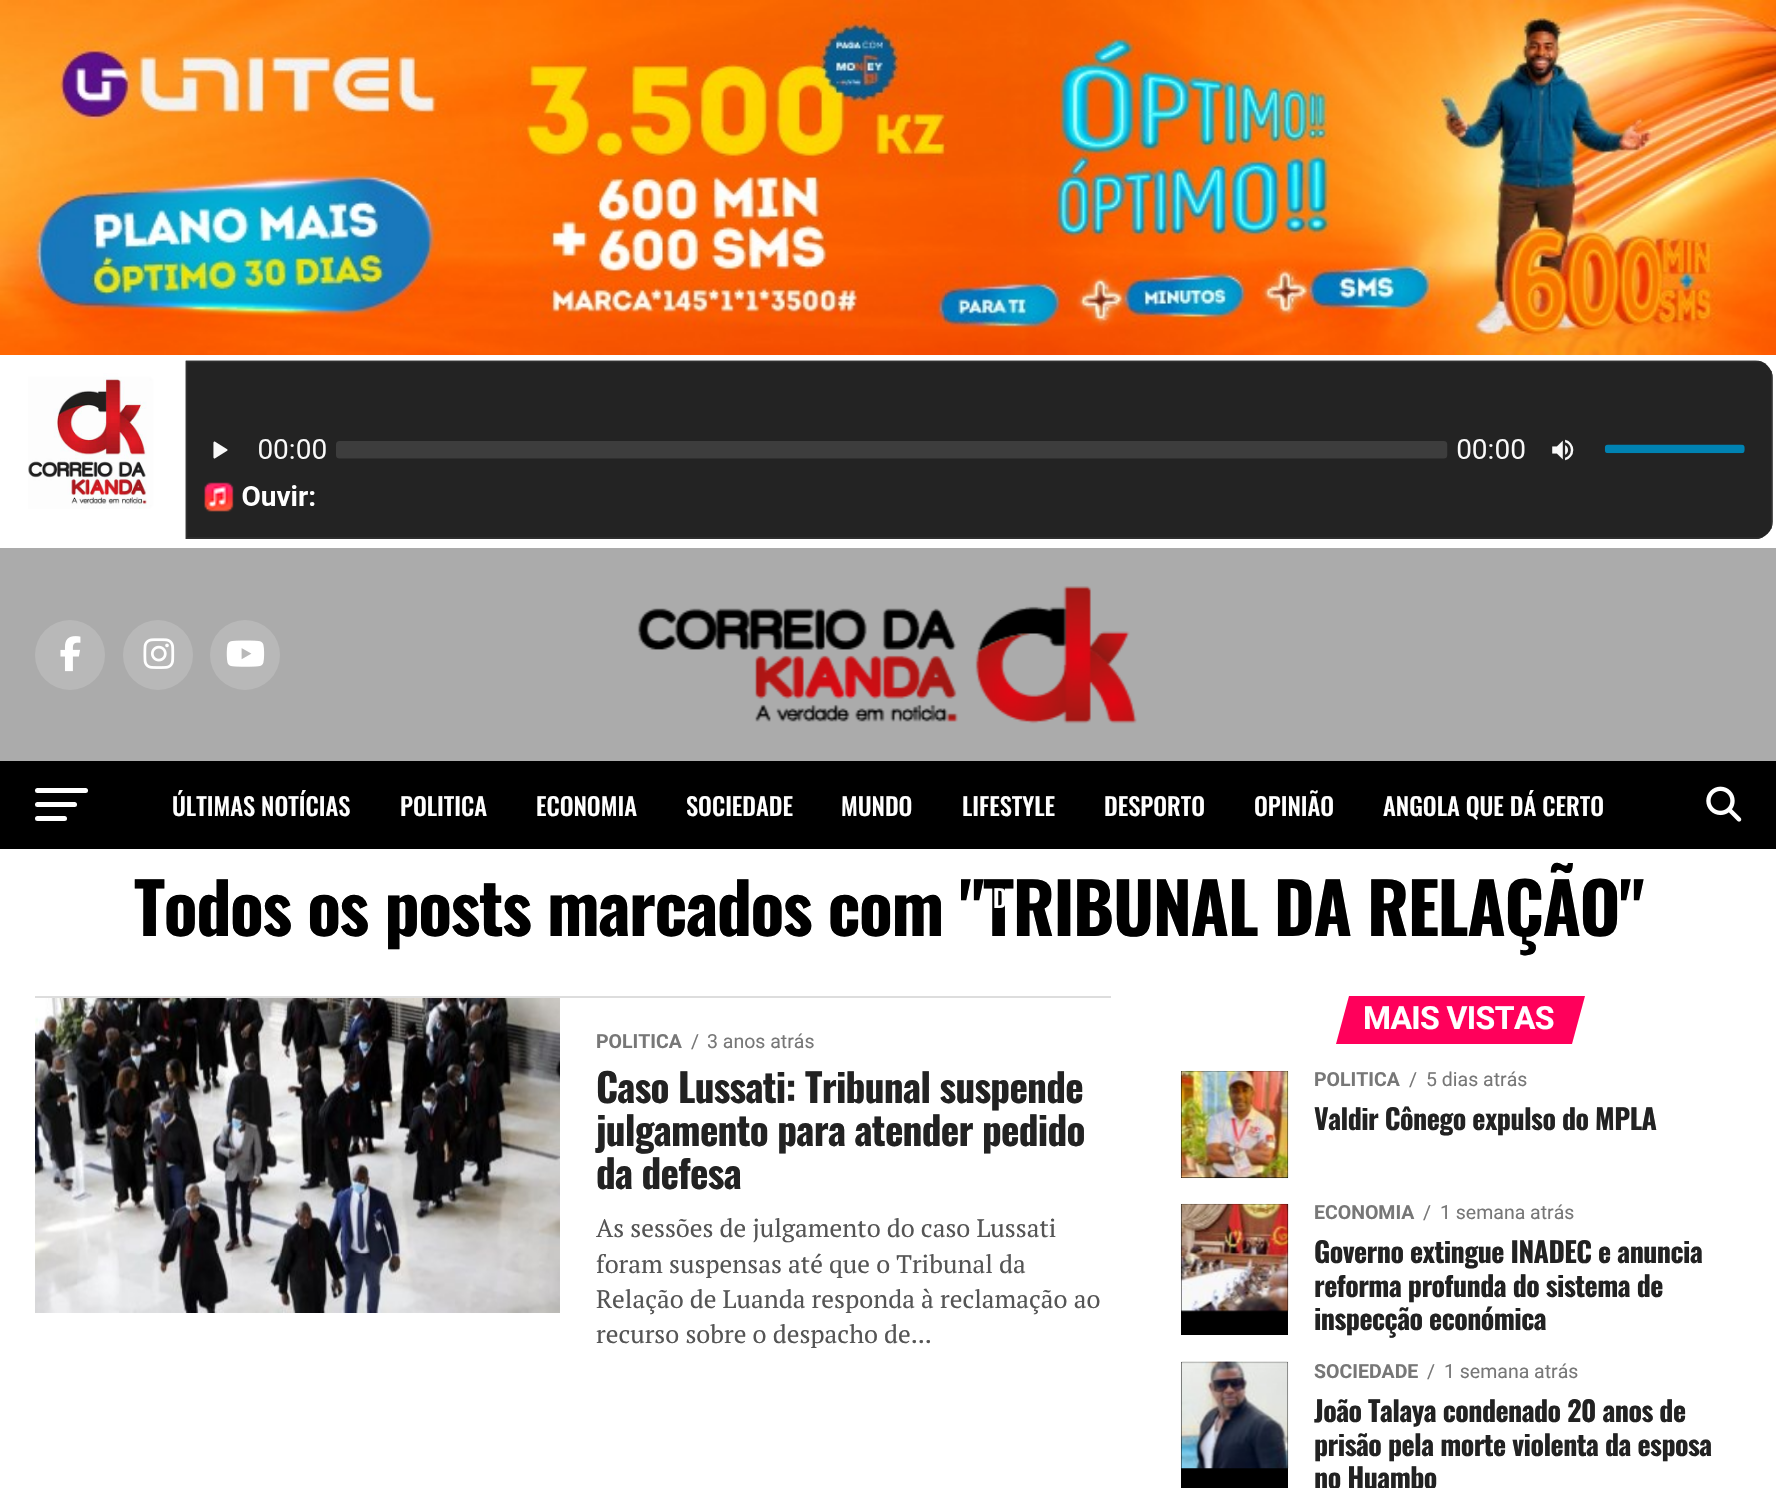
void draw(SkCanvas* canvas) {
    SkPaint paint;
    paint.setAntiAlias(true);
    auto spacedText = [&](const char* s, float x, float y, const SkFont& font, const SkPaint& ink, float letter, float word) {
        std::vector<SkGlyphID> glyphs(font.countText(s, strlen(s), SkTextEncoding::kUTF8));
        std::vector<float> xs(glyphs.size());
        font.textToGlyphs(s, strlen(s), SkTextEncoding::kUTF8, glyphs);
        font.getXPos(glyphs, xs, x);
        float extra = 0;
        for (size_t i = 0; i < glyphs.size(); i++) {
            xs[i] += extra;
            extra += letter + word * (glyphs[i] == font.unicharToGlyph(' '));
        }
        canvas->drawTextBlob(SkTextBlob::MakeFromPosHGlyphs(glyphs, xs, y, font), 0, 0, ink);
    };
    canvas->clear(0xFFFFFFFF);
    canvas->drawImageRect(SkImages::DeferredFromEncodedData(SkData::MakeFromFileName("img1.png")), SkRect::MakeXYWH(0, 0, 1776, 355), SkSamplingOptions());
    canvas->drawImageRect(SkImages::DeferredFromEncodedData(SkData::MakeFromFileName("img2.png")), SkRect::MakeXYWH(28, 360, 1745, 179), SkSamplingOptions());
    paint.setColor(0xFFABABAB);
    canvas->drawRect(SkRect::MakeXYWH(0, 548, 1776, 213), paint);
    paint.setColor(0xFFB8B8B8);
    canvas->drawCircle(70, 655, 35, paint);
    canvas->drawImageRect(SkImages::DeferredFromEncodedData(SkData::MakeFromFileName("img3.png")), SkRect::MakeXYWH(60, 636, 21, 36), SkSamplingOptions());
    canvas->drawCircle(158, 655, 35, paint);
    canvas->drawImageRect(SkImages::DeferredFromEncodedData(SkData::MakeFromFileName("img4.png")), SkRect::MakeXYWH(143, 638, 32, 31), SkSamplingOptions());
    canvas->drawCircle(245, 655, 35, paint);
    canvas->drawImageRect(SkImages::DeferredFromEncodedData(SkData::MakeFromFileName("img5.png")), SkRect::MakeXYWH(226, 640, 39, 27), SkSamplingOptions());
    canvas->drawImageRect(SkImages::DeferredFromEncodedData(SkData::MakeFromFileName("img6.png")), SkRect::MakeXYWH(637, 586, 500, 138), SkSamplingOptions());
    paint.setColor(0xFF000000);
    canvas->drawRect(SkRect::MakeXYWH(0, 761, 1776, 88), paint);
    paint.setColor(0xFFFFFFFF);
    canvas->drawRoundRect(SkRect::MakeXYWH(35, 788, 53, 5), 2.5f, 2.5f, paint);
    canvas->drawRoundRect(SkRect::MakeXYWH(35, 802, 42, 5), 2.5f, 2.5f, paint);
    canvas->drawRoundRect(SkRect::MakeXYWH(35, 816, 32, 5), 2.5f, 2.5f, paint);
    SkFont font1(fontMgr->matchFamilyStyle("Oswald", SkFontStyle(500, SkFontStyle::kNormal_Width, SkFontStyle::kUpright_Slant)), 24.5f);
    font1.setSubpixel(true);
    canvas->drawString("ÚLTIMAS NOTÍCIAS", 172, 816, font1, paint);
    canvas->drawString("POLITICA", 400, 816, font1, paint);
    canvas->drawString("ECONOMIA", 536, 816, font1, paint);
    canvas->drawString("SOCIEDADE", 686, 816, font1, paint);
    canvas->drawString("MUNDO", 841, 816, font1, paint);
    canvas->drawString("LIFESTYLE", 962, 816, font1, paint);
    canvas->drawString("DESPORTO", 1104, 816, font1, paint);
    canvas->drawString("OPINIÃO", 1254, 816, font1, paint);
    canvas->drawString("ANGOLA QUE DÁ CERTO", 1383, 816, font1, paint);
    SkFont font2(fontMgr->matchFamilyStyle("Oswald", SkFontStyle::Bold()), 70);
    font2.setSubpixel(true);
    paint.setColor(0xFF000000);
    spacedText("Todos os posts marcados com \"TRIBUNAL DA RELAÇÃO\"", 134, 936, font2, paint, -1.4f, 0);
    paint.setColor(0xFFFFFFFF);
    canvas->drawString("D", 993, 908, font1, paint);
    canvas->drawImageRect(SkImages::DeferredFromEncodedData(SkData::MakeFromFileName("img7.png")), SkRect::MakeXYWH(1706, 786, 36, 36), SkSamplingOptions());
    paint.setColor(0xFFDDDDDD);
    canvas->drawRect(SkRect::MakeXYWH(35, 996, 1076, 2), paint);
    canvas->drawImageRect(SkImages::DeferredFromEncodedData(SkData::MakeFromFileName("img8.png")), SkRect::MakeXYWH(35, 998, 525, 315), SkSamplingOptions());
    SkFont font3(fontMgr->matchFamilyStyle("Roboto", SkFontStyle::Bold()), 19.5f);
    font3.setSubpixel(true);
    paint.setColor(0xFF777777);
    canvas->drawString("POLITICA", 596, 1048, font3, paint);
    SkFont font4(fontMgr->matchFamilyStyle("Roboto", SkFontStyle::Normal()), 19.5f);
    font4.setSubpixel(true);
    canvas->drawString("/", 691, 1048, font4, paint);
    canvas->drawString("3 anos atrás", 707, 1048, font4, paint);
    SkFont font5(fontMgr->matchFamilyStyle("Oswald", SkFontStyle::Bold()), 39.25f);
    font5.setSubpixel(true);
    paint.setColor(0xFF222222);
    spacedText("Caso Lussati: Tribunal suspende", 596, 1103, font5, paint, -0.75f, 0);
    spacedText("julgamento para atender pedido", 596, 1146, font5, paint, -0.75f, 0);
    spacedText("da defesa", 596, 1189, font5, paint, -0.75f, 0);
    SkFont font6(fontMgr->matchFamilyStyle("PT Serif", SkFontStyle::Normal()), 25.25f);
    font6.setSubpixel(true);
    paint.setColor(0xFF555555);
    canvas->drawString("As sessões de julgamento do caso Lussati", 596, 1237, font6, paint);
    canvas->drawString("foram suspensas até que o Tribunal da", 596, 1273, font6, paint);
    canvas->drawString("Relação de Luanda responda à reclamação ao", 596, 1308, font6, paint);
    canvas->drawString("recurso sobre o despacho de...", 596, 1343, font6, paint);
    paint.setColor(0xFFFF005B);
    canvas->drawPath(SkPathBuilder().moveTo(1349, 996).lineTo(1585, 996).lineTo(1572, 1044).lineTo(1336, 1044).close().detach(), paint);
    SkFont font7(fontMgr->matchFamilyStyle("Roboto", SkFontStyle::Bold()), 32);
    font7.setSubpixel(true);
    paint.setColor(0xFFFFFFFF);
    spacedText("MAIS VISTAS", 1363, 1029, font7, paint, -0.6f, 0);
    paint.setColor(0xFF000000);
    canvas->drawRect(SkRect::MakeXYWH(1181, 1071, 107, 107), paint);
    canvas->drawImageRect(SkImages::DeferredFromEncodedData(SkData::MakeFromFileName("img9.png")), SkRect::MakeXYWH(1180, 1070, 109, 109), SkSamplingOptions());
    paint.setColor(0xFF777777);
    canvas->drawString("POLITICA", 1314, 1086, font3, paint);
    canvas->drawString("/", 1409, 1086, font4, paint);
    canvas->drawString("5 dias atrás", 1426, 1086, font4, paint);
    SkFont font8(fontMgr->matchFamilyStyle("Oswald", SkFontStyle::Bold()), 28);
    font8.setSubpixel(true);
    paint.setColor(0xFF222222);
    spacedText("Valdir Cônego expulso do MPLA", 1314, 1130, font8, paint, -0.55f, 0);
    paint.setColor(0xFF000000);
    canvas->drawRect(SkRect::MakeXYWH(1181, 1204, 107, 131), paint);
    canvas->drawImageRect(SkImages::DeferredFromEncodedData(SkData::MakeFromFileName("img10.png")), SkRect::MakeXYWH(1180, 1203, 109, 109), SkSamplingOptions());
    paint.setColor(0xFF777777);
    canvas->drawString("ECONOMIA", 1314, 1219, font3, paint);
    canvas->drawString("/", 1423, 1219, font4, paint);
    canvas->drawString("1 semana atrás", 1440, 1219, font4, paint);
    paint.setColor(0xFF222222);
    spacedText("Governo extingue INADEC e anuncia", 1314, 1263, font8, paint, -0.55f, 0);
    spacedText("reforma profunda do sistema de", 1314, 1297, font8, paint, -0.55f, 0);
    spacedText("inspecção económica", 1314, 1330, font8, paint, -0.55f, 0);
    paint.setColor(0xFF000000);
    canvas->drawRect(SkRect::MakeXYWH(1181, 1362, 107, 126), paint);
    canvas->drawImageRect(SkImages::DeferredFromEncodedData(SkData::MakeFromFileName("img11.png")), SkRect::MakeXYWH(1180, 1361, 109, 108), SkSamplingOptions());
    paint.setColor(0xFF777777);
    canvas->drawString("SOCIEDADE", 1314, 1378, font3, paint);
    canvas->drawString("/", 1427, 1378, font4, paint);
    canvas->drawString("1 semana atrás", 1444, 1378, font4, paint);
    paint.setColor(0xFF222222);
    spacedText("João Talaya condenado 20 anos de", 1314, 1422, font8, paint, -0.55f, 0);
    spacedText("prisão pela morte violenta da esposa", 1314, 1456, font8, paint, -0.55f, 0);
    spacedText("no Huambo", 1314, 1489, font8, paint, -0.55f, 0);
}
